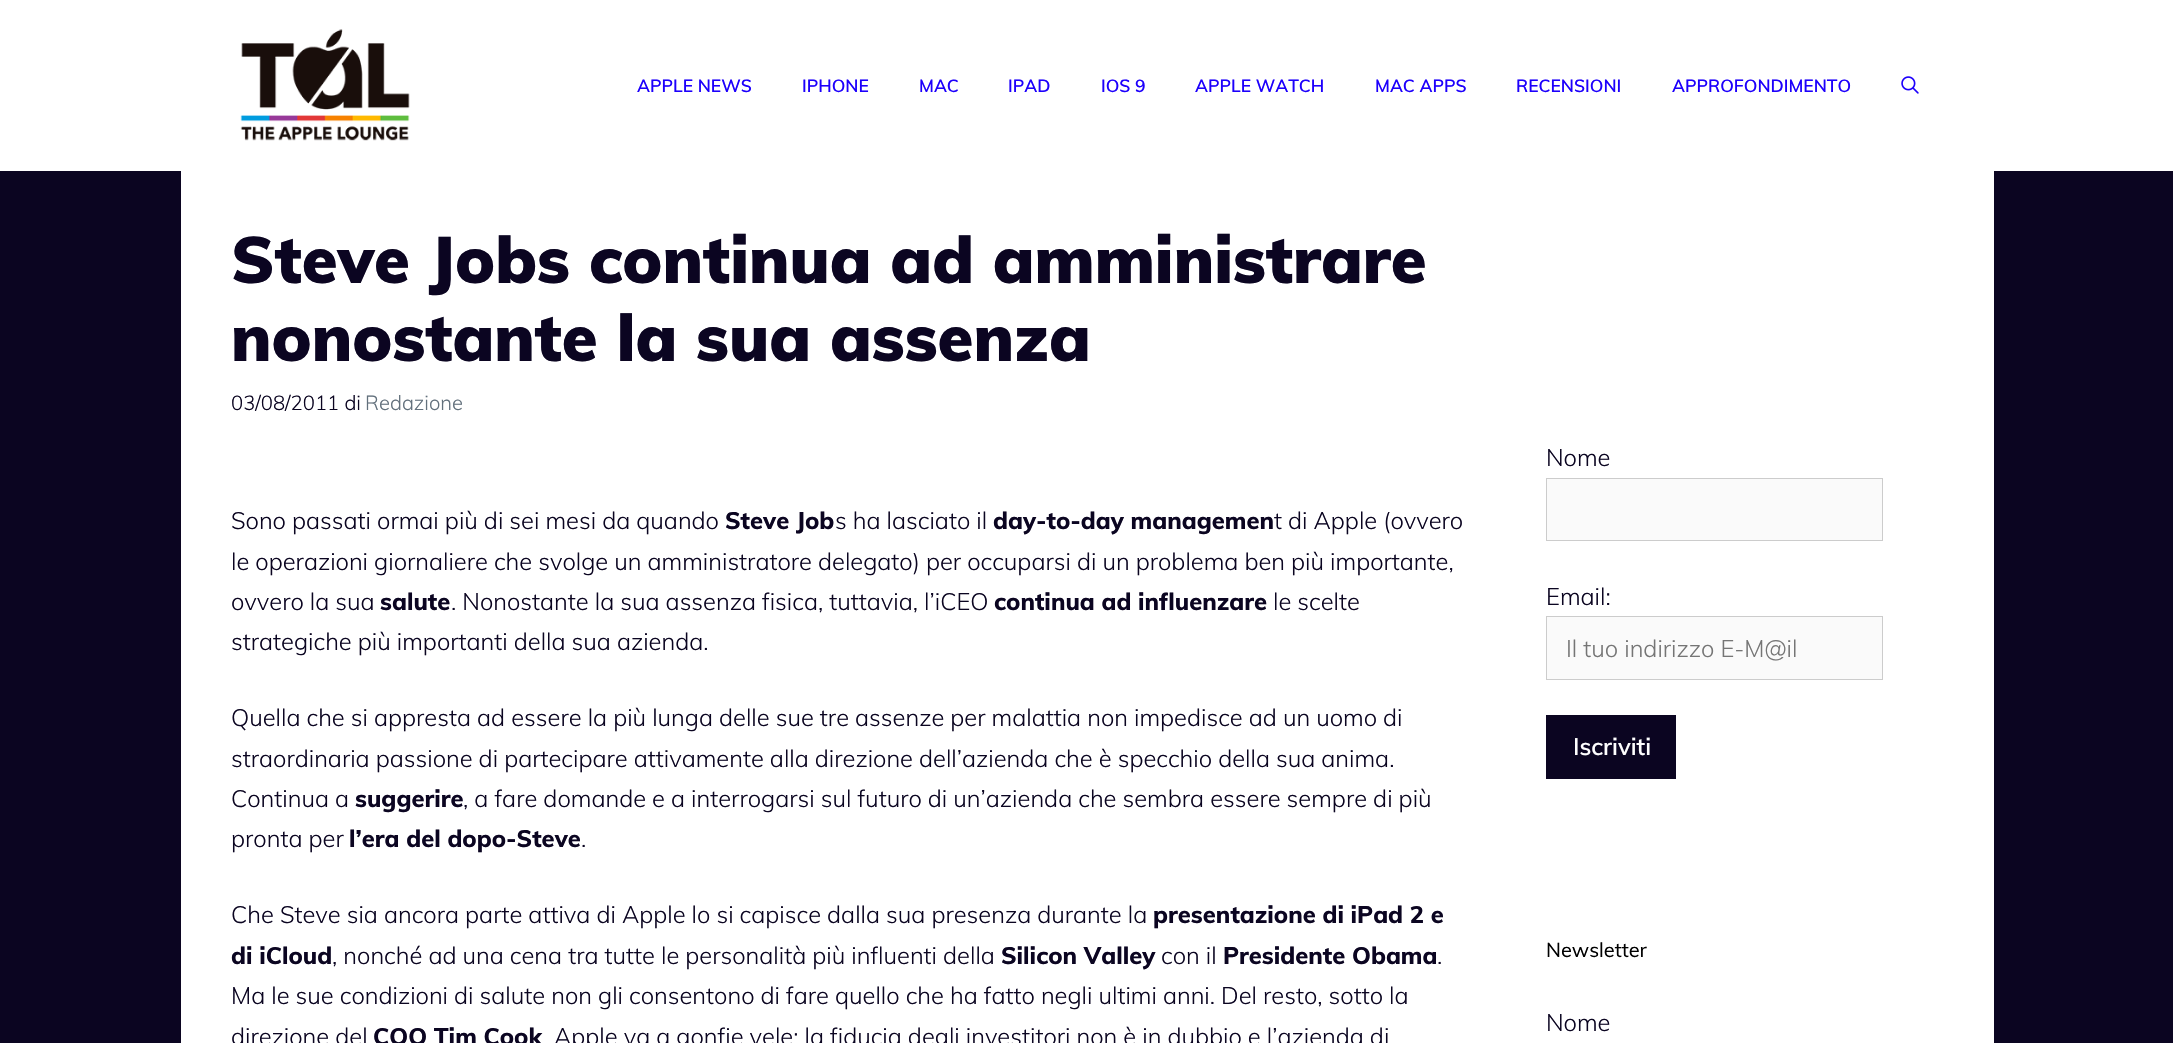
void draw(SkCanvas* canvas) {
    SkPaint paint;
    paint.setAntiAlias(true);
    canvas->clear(0xFF0B0521);
    paint.setColor(0xFFFFFFFF);
    canvas->drawRect(SkRect::MakeXYWH(0, 0, 2173, 171), paint);
    canvas->drawImageRect(SkImages::DeferredFromEncodedData(SkData::MakeFromFileName("img1.png")), SkRect::MakeXYWH(240, 29, 170, 112), SkSamplingOptions());
    SkFont font1(fontMgr->matchFamilyStyle("Muli", SkFontStyle(600, SkFontStyle::kNormal_Width, SkFontStyle::kUpright_Slant)), 17.5f);
    font1.setSubpixel(true);
    paint.setColor(0xFF1D00FC);
    canvas->drawString("APPLE NEWS", 637, 92, font1, paint);
    canvas->drawString("IPHONE", 802, 92, font1, paint);
    canvas->drawString("MAC", 919, 92, font1, paint);
    canvas->drawString("IPAD", 1008, 92, font1, paint);
    canvas->drawString("IOS 9", 1101, 92, font1, paint);
    canvas->drawString("APPLE WATCH", 1195, 92, font1, paint);
    canvas->drawString("MAC APPS", 1375, 92, font1, paint);
    canvas->drawString("RECENSIONI", 1516, 92, font1, paint);
    canvas->drawString("APPROFONDIMENTO", 1672, 92, font1, paint);
    canvas->drawImageRect(SkImages::DeferredFromEncodedData(SkData::MakeFromFileName("img2.png")), SkRect::MakeXYWH(1901, 76, 18, 18), SkSamplingOptions());
    paint.setColor(0xFFFFFFFF);
    canvas->drawRect(SkRect::MakeXYWH(181, 171, 1813, 872), paint);
    SkFont font2(fontMgr->matchFamilyStyle("Muli", SkFontStyle(900, SkFontStyle::kNormal_Width, SkFontStyle::kUpright_Slant)), 65);
    font2.setSubpixel(true);
    paint.setColor(0xFF0B0521);
    canvas->drawString("Steve Jobs continua ad amministrare", 231, 283, font2, paint);
    canvas->drawString("nonostante la sua assenza", 231, 361, font2, paint);
    SkFont font3(fontMgr->matchFamilyStyle("Muli", SkFontStyle(300, SkFontStyle::kNormal_Width, SkFontStyle::kUpright_Slant)), 20.25f);
    font3.setSubpixel(true);
    canvas->drawString("03/08/2011 di", 231, 410, font3, paint);
    paint.setColor(0xFF62707C);
    canvas->drawString("Redazione", 365, 410, font3, paint);
    SkFont font4(fontMgr->matchFamilyStyle("Muli", SkFontStyle(300, SkFontStyle::kNormal_Width, SkFontStyle::kUpright_Slant)), 23.75f);
    font4.setSubpixel(true);
    paint.setColor(0xFF0B0521);
    canvas->drawString("Sono passati ormai più di sei mesi da quando", 231, 529, font4, paint);
    SkFont font5(fontMgr->matchFamilyStyle("Muli", SkFontStyle(800, SkFontStyle::kNormal_Width, SkFontStyle::kUpright_Slant)), 23.75f);
    font5.setSubpixel(true);
    canvas->drawString("Steve Job", 725, 529, font5, paint);
    canvas->drawString("s ha lasciato il", 835, 529, font4, paint);
    canvas->drawString("day-to-day managemen", 993, 529, font5, paint);
    canvas->drawString("t di Apple (ovvero", 1274, 529, font4, paint);
    canvas->drawString("le operazioni giornaliere che svolge un amministratore delegato) per occuparsi di un problema ben più importante,", 231, 570, font4, paint);
    canvas->drawString("ovvero la sua", 231, 610, font4, paint);
    canvas->drawString("salute", 380, 610, font5, paint);
    canvas->drawString(". Nonostante la sua assenza fisica, tuttavia, l’iCEO", 451, 610, font4, paint);
    canvas->drawString("continua ad influenzare", 994, 610, font5, paint);
    canvas->drawString("le scelte", 1273, 610, font4, paint);
    canvas->drawString("strategiche più importanti della sua azienda.", 231, 650, font4, paint);
    canvas->drawString("Quella che si appresta ad essere la più lunga delle sue tre assenze per malattia non impedisce ad un uomo di", 231, 726, font4, paint);
    canvas->drawString("straordinaria passione di partecipare attivamente alla direzione dell’azienda che è specchio della sua anima.", 231, 767, font4, paint);
    canvas->drawString("Continua a", 231, 807, font4, paint);
    canvas->drawString("suggerire", 355, 807, font5, paint);
    canvas->drawString(", a fare domande e a interrogarsi sul futuro di un’azienda che sembra essere sempre di più", 463, 807, font4, paint);
    canvas->drawString("pronta per", 231, 847, font4, paint);
    canvas->drawString("l’era del dopo-Steve", 349, 847, font5, paint);
    canvas->drawString(".", 581, 847, font4, paint);
    canvas->drawString("Che Steve sia ancora parte attiva di Apple lo si capisce dalla sua presenza durante la", 231, 923, font4, paint);
    canvas->drawString("presentazione di iPad 2 e", 1153, 923, font5, paint);
    canvas->drawString("di iCloud", 231, 964, font5, paint);
    canvas->drawString(", nonché ad una cena tra tutte le personalità più influenti della", 332, 964, font4, paint);
    canvas->drawString("Silicon Valley", 1001, 964, font5, paint);
    canvas->drawString("con il", 1161, 964, font4, paint);
    canvas->drawString("Presidente Obama", 1223, 964, font5, paint);
    canvas->drawString(".", 1437, 964, font4, paint);
    canvas->drawString("Ma le sue condizioni di salute non gli consentono di fare quello che ha fatto negli ultimi anni. Del resto, sotto la", 231, 1004, font4, paint);
    canvas->drawString("direzione del", 231, 1045, font4, paint);
    canvas->drawString("COO Tim Cook", 373, 1045, font5, paint);
    canvas->drawString("Apple va a gonfie vele; la fiducia degli investitori non è in dubbio e l’azienda di", 554, 1045, font4, paint);
    canvas->drawString("Nome", 1546, 466, font4, paint);
    paint.setColor(0xFFFAFAFA);
    canvas->drawRect(SkRect::MakeXYWH(1546.5f, 478.5f, 336, 62), paint);
    paint.setStyle(SkPaint::kStroke_Style);
    paint.setStrokeWidth(1);
    paint.setColor(0xFFCCCCCC);
    canvas->drawRect(SkRect::MakeXYWH(1546.5f, 478.5f, 336, 62), paint);
    paint.setStyle(SkPaint::kFill_Style);
    paint.setColor(0xFF0B0521);
    canvas->drawString("Email:", 1546, 605, font4, paint);
    paint.setColor(0xFFFAFAFA);
    canvas->drawRect(SkRect::MakeXYWH(1546.5f, 616.5f, 336, 63), paint);
    paint.setStyle(SkPaint::kStroke_Style);
    paint.setColor(0xFFCCCCCC);
    canvas->drawRect(SkRect::MakeXYWH(1546.5f, 616.5f, 336, 63), paint);
    paint.setStyle(SkPaint::kFill_Style);
    paint.setColor(0xFF757575);
    canvas->drawString("Il tuo indirizzo E-M@il", 1566, 657, font4, paint);
    paint.setColor(0xFF0B0521);
    canvas->drawRect(SkRect::MakeXYWH(1546, 715, 130, 64), paint);
    SkFont font6(fontMgr->matchFamilyStyle("Muli", SkFontStyle(600, SkFontStyle::kNormal_Width, SkFontStyle::kUpright_Slant)), 23.75f);
    font6.setSubpixel(true);
    paint.setColor(0xFFFFFFFF);
    canvas->drawString("Iscriviti", 1573, 755, font6, paint);
    SkFont font7(fontMgr->matchFamilyStyle("Muli", SkFontStyle::Normal()), 20);
    font7.setSubpixel(true);
    paint.setColor(0xFF000000);
    canvas->drawString("Newsletter", 1546, 957, font7, paint);
    paint.setColor(0xFF0B0521);
    canvas->drawString("Nome", 1546, 1031, font4, paint);
}
